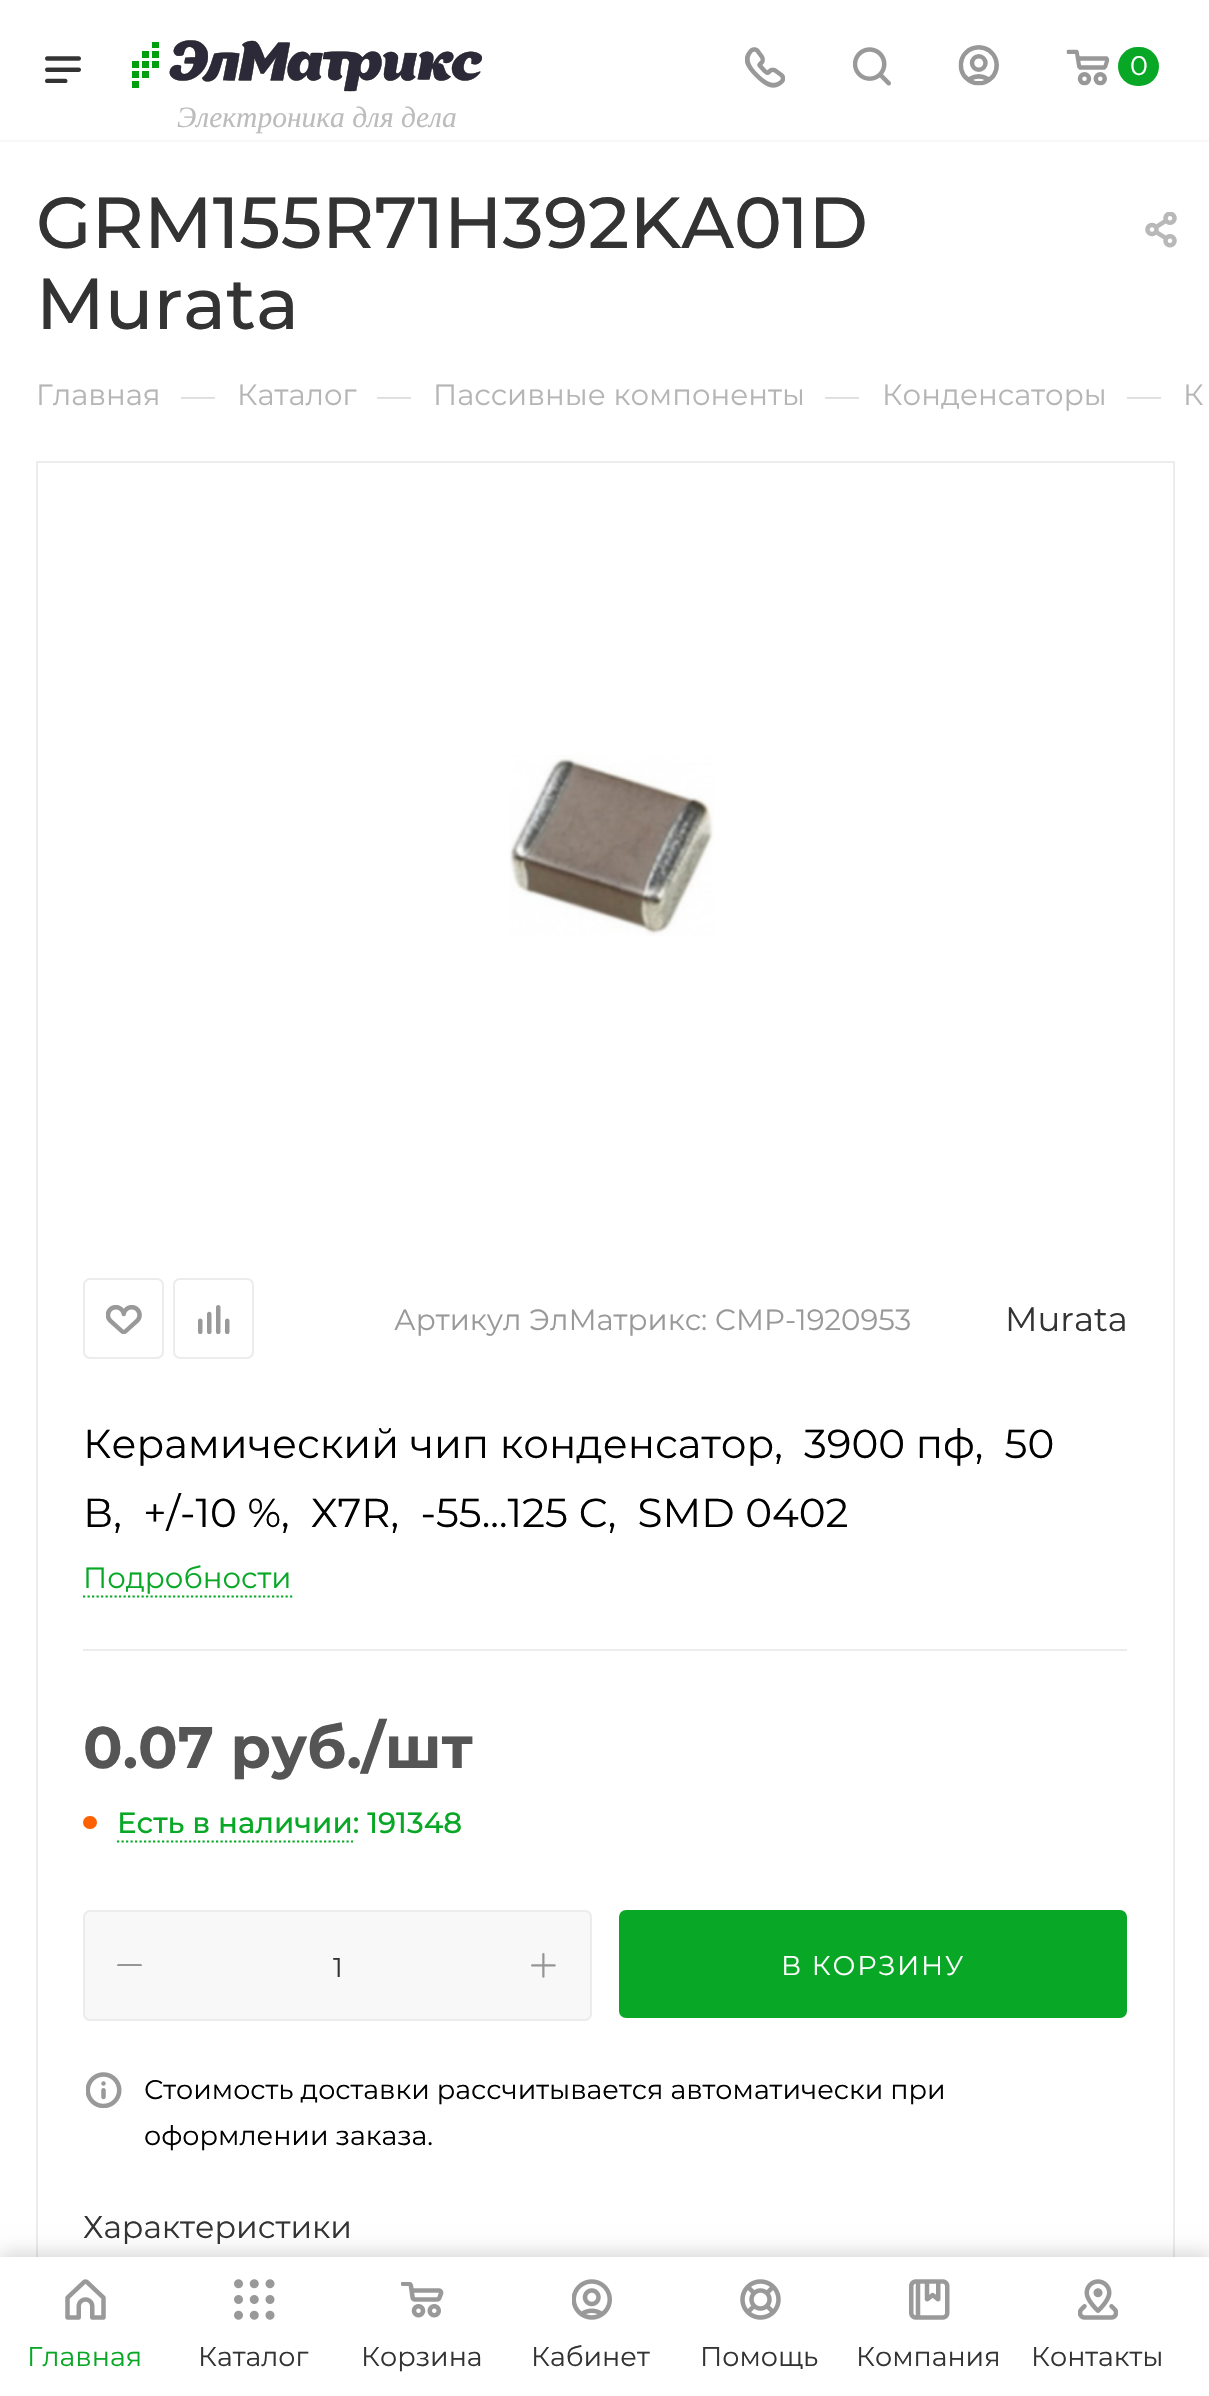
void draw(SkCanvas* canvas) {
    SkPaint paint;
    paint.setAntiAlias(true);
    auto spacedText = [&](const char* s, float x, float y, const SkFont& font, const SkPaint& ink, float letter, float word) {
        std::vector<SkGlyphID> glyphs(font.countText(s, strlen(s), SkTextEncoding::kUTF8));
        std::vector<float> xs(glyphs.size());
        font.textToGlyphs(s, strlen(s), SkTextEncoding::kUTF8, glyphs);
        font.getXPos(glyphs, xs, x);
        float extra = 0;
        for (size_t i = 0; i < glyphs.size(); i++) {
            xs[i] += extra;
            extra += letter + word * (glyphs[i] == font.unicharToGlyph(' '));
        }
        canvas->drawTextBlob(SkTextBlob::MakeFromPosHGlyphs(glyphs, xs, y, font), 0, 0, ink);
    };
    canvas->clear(0xFFFFFFFF);
    paint.setColor(0xFFF8F8F8);
    canvas->drawRect(SkRect::MakeXYWH(0, 140, 1209, 2), paint);
    canvas->drawImageRect(SkImages::DeferredFromEncodedData(SkData::MakeFromFileName("img1.png")), SkRect::MakeXYWH(45, 56, 36, 27), SkSamplingOptions());
    canvas->drawImageRect(SkImages::DeferredFromEncodedData(SkData::MakeFromFileName("img2.png")), SkRect::MakeXYWH(745, 47, 40, 41), SkSamplingOptions());
    canvas->drawImageRect(SkImages::DeferredFromEncodedData(SkData::MakeFromFileName("img3.png")), SkRect::MakeXYWH(853, 47, 38, 39), SkSamplingOptions());
    canvas->drawImageRect(SkImages::DeferredFromEncodedData(SkData::MakeFromFileName("img4.png")), SkRect::MakeXYWH(958, 45, 41, 41), SkSamplingOptions());
    canvas->drawImageRect(SkImages::DeferredFromEncodedData(SkData::MakeFromFileName("img5.png")), SkRect::MakeXYWH(1066, 49, 44, 37), SkSamplingOptions());
    paint.setColor(0xFF08A826);
    canvas->drawRoundRect(SkRect::MakeXYWH(1118, 47, 41, 39), 19.5f, 19.5f, paint);
    SkFont font1(fontMgr->matchFamilyStyle("Montserrat", SkFontStyle::Normal()), 27);
    font1.setSubpixel(true);
    paint.setColor(0xFFFFFFFF);
    canvas->drawString("0", 1130, 75, font1, paint);
    canvas->drawImageRect(SkImages::DeferredFromEncodedData(SkData::MakeFromFileName("img6.png")), SkRect::MakeXYWH(132, 40, 350, 52), SkSamplingOptions());
    SkFont font2(fontMgr->matchFamilyStyle("Liberation Serif", SkFontStyle::Italic()), 29.5f);
    font2.setSubpixel(true);
    paint.setColor(0xFFBCBCBC);
    canvas->drawString("Электроника для дела", 177, 127, font2, paint);
    SkFont font3(fontMgr->matchFamilyStyle("Montserrat", SkFontStyle(500, SkFontStyle::kNormal_Width, SkFontStyle::kUpright_Slant)), 72);
    font3.setSubpixel(true);
    paint.setColor(0xFF333333);
    canvas->drawString("GRM155R71H392KA01D", 36, 248, font3, paint);
    canvas->drawString("Murata", 36, 329, font3, paint);
    canvas->drawImageRect(SkImages::DeferredFromEncodedData(SkData::MakeFromFileName("img7.png")), SkRect::MakeXYWH(1145, 212, 32, 36), SkSamplingOptions());
    SkFont font4(fontMgr->matchFamilyStyle("Montserrat", SkFontStyle::Normal()), 29.25f);
    font4.setSubpixel(true);
    paint.setColor(0xFFB6B5B5);
    canvas->drawString("Главная", 36, 405, font4, paint);
    SkFont font5(fontMgr->matchFamilyStyle("Montserrat", SkFontStyle::Normal()), 34);
    font5.setSubpixel(true);
    paint.setColor(0xFFDDDDDD);
    canvas->drawString("—", 181, 407, font5, paint);
    paint.setColor(0xFFB6B5B5);
    canvas->drawString("Каталог", 237, 405, font4, paint);
    paint.setColor(0xFFDDDDDD);
    canvas->drawString("—", 377, 407, font5, paint);
    paint.setColor(0xFFB6B5B5);
    canvas->drawString("Пассивные компоненты", 433, 405, font4, paint);
    paint.setColor(0xFFDDDDDD);
    canvas->drawString("—", 825, 407, font5, paint);
    paint.setColor(0xFFB6B5B5);
    canvas->drawString("Конденсаторы", 882, 405, font4, paint);
    paint.setColor(0xFFDDDDDD);
    canvas->drawString("—", 1127, 407, font5, paint);
    paint.setColor(0xFFB6B5B5);
    canvas->drawString("К", 1183, 405, font4, paint);
    paint.setStyle(SkPaint::kStroke_Style);
    paint.setStrokeWidth(2);
    paint.setColor(0xFFECECEC);
    canvas->drawRect(SkRect::MakeXYWH(37, 462, 1137, 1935), paint);
    canvas->drawImageRect(SkImages::DeferredFromEncodedData(SkData::MakeFromFileName("img8.png")), SkRect::MakeXYWH(509, 755, 206, 181), SkSamplingOptions());
    canvas->drawRoundRect(SkRect::MakeXYWH(84, 1279, 79, 79), 6, 6, paint);
    canvas->drawImageRect(SkImages::DeferredFromEncodedData(SkData::MakeFromFileName("img9.png")), SkRect::MakeXYWH(106, 1305, 36, 29), SkSamplingOptions());
    canvas->drawRoundRect(SkRect::MakeXYWH(174, 1279, 79, 79), 6, 6, paint);
    canvas->drawImageRect(SkImages::DeferredFromEncodedData(SkData::MakeFromFileName("img10.png")), SkRect::MakeXYWH(198, 1305, 32, 29), SkSamplingOptions());
    paint.setStyle(SkPaint::kFill_Style);
    paint.setColor(0xFF999999);
    canvas->drawString("Артикул ЭлМатрикс: CMP-1920953", 394, 1330, font4, paint);
    paint.setColor(0xFF333333);
    canvas->drawString("Murata", 1005, 1331, font5, paint);
    paint.setColor(0xFFECECEC);
    canvas->drawRect(SkRect::MakeXYWH(83, 1649, 1044, 2), paint);
    SkFont font6(fontMgr->matchFamilyStyle("Montserrat", SkFontStyle::Normal()), 40.5f);
    font6.setSubpixel(true);
    paint.setColor(0xFF000000);
    canvas->drawString("Керамический чип конденсатор,  3900 пф,  50", 83, 1458, font6, paint);
    canvas->drawString("В,  +/-10 %,  X7R,  -55...125 C,  SMD 0402", 83, 1527, font6, paint);
    paint.setColor(0xFF08A826);
    canvas->drawString("Подробности", 83, 1588, font4, paint);
    paint.setStyle(SkPaint::kStroke_Style);
    paint.setStrokeWidth(2.2f);
    paint.setPathEffect(SkDashPathEffect::Make({{2.25f, 2.25f}}, 0));
    canvas->drawPath(SkPathBuilder().moveTo(83, 1596.5f).lineTo(292.5f, 1596.5f).detach(), paint);
    paint.setPathEffect(nullptr);
    SkFont font7(fontMgr->matchFamilyStyle("Montserrat", SkFontStyle::Bold()), 58.5f);
    font7.setSubpixel(true);
    paint.setStyle(SkPaint::kFill_Style);
    paint.setColor(0xFF555555);
    canvas->drawString("0.07 руб./шт", 83, 1768, font7, paint);
    paint.setColor(0xFFFF6100);
    canvas->drawRoundRect(SkRect::MakeXYWH(83, 1816, 14, 13), 6.5f, 6.5f, paint);
    SkFont font8(fontMgr->matchFamilyStyle("Montserrat", SkFontStyle(500, SkFontStyle::kNormal_Width, SkFontStyle::kUpright_Slant)), 29.25f);
    font8.setSubpixel(true);
    paint.setColor(0xFF08A826);
    canvas->drawString("Есть в наличии: 191348", 117, 1833, font8, paint);
    paint.setStyle(SkPaint::kStroke_Style);
    paint.setPathEffect(SkDashPathEffect::Make({{2.25f, 2.25f}}, 0));
    canvas->drawPath(SkPathBuilder().moveTo(117, 1841.5f).lineTo(353, 1841.5f).detach(), paint);
    paint.setPathEffect(nullptr);
    paint.setStyle(SkPaint::kFill_Style);
    paint.setColor(0xFFF8F8F8);
    canvas->drawRoundRect(SkRect::MakeXYWH(84, 1911, 507, 109), 6, 6, paint);
    paint.setStyle(SkPaint::kStroke_Style);
    paint.setStrokeWidth(2);
    paint.setColor(0xFFECECEC);
    canvas->drawRoundRect(SkRect::MakeXYWH(84, 1911, 507, 109), 6, 6, paint);
    canvas->save();
    canvas->clipRect(SkRect::MakeXYWH(117, 1964, 25, 2));
    paint.setStyle(SkPaint::kFill_Style);
    paint.setColor(0xFF969696);
    canvas->drawRoundRect(SkRect::MakeXYWH(117, 1964, 25, 3), 1.5f, 1.5f, paint);
    canvas->restore();
    paint.setColor(0xFF333333);
    canvas->drawString("1", 333, 1977, font1, paint);
    canvas->drawImageRect(SkImages::DeferredFromEncodedData(SkData::MakeFromFileName("img11.png")), SkRect::MakeXYWH(531, 1953, 25, 25), SkSamplingOptions());
    paint.setColor(0xFF08A826);
    canvas->drawRoundRect(SkRect::MakeXYWH(620, 1911, 506, 106), 6, 6, paint);
    paint.setStyle(SkPaint::kStroke_Style);
    canvas->drawRoundRect(SkRect::MakeXYWH(620, 1911, 506, 106), 6, 6, paint);
    paint.setStyle(SkPaint::kFill_Style);
    paint.setColor(0xFFFFFFFF);
    spacedText("В КОРЗИНУ", 781, 1975, font1, paint, 1.75f, 0);
    canvas->drawImageRect(SkImages::DeferredFromEncodedData(SkData::MakeFromFileName("img12.png")), SkRect::MakeXYWH(86, 2072, 36, 36), SkSamplingOptions());
    paint.setColor(0xFF000000);
    canvas->drawString("Стоимость доставки рассчитывается автоматически при", 144, 2099, font1, paint);
    canvas->drawString("оформлении заказа.", 144, 2145, font1, paint);
    SkFont font9(fontMgr->matchFamilyStyle("Montserrat", SkFontStyle::Normal()), 31.5f);
    font9.setSubpixel(true);
    paint.setColor(0xFF333333);
    canvas->drawString("Характеристики", 83, 2238, font9, paint);
    paint.setColor(0x26000000);
    paint.setMaskFilter(SkMaskFilter::MakeBlur(kNormal_SkBlurStyle, 9));
    canvas->drawRect(SkRect::MakeXYWH(0, 2252, 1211, 140), paint);
    paint.setMaskFilter(nullptr);
    paint.setColor(0xFFFFFFFF);
    canvas->drawRect(SkRect::MakeXYWH(0, 2257, 1209, 139), paint);
    canvas->drawImageRect(SkImages::DeferredFromEncodedData(SkData::MakeFromFileName("img13.png")), SkRect::MakeXYWH(65, 2279, 41, 41), SkSamplingOptions());
    paint.setColor(0xFF08A826);
    canvas->drawString("Главная", 27, 2366, font1, paint);
    canvas->drawImageRect(SkImages::DeferredFromEncodedData(SkData::MakeFromFileName("img14.png")), SkRect::MakeXYWH(234, 2279, 41, 41), SkSamplingOptions());
    paint.setColor(0xFF333333);
    canvas->drawString("Каталог", 198, 2366, font1, paint);
    canvas->drawImageRect(SkImages::DeferredFromEncodedData(SkData::MakeFromFileName("img15.png")), SkRect::MakeXYWH(401, 2282, 43, 36), SkSamplingOptions());
    canvas->drawString("Корзина", 361, 2366, font1, paint);
    canvas->drawImageRect(SkImages::DeferredFromEncodedData(SkData::MakeFromFileName("img16.png")), SkRect::MakeXYWH(572, 2279, 40, 41), SkSamplingOptions());
    canvas->drawString("Кабинет", 531, 2366, font1, paint);
    canvas->drawImageRect(SkImages::DeferredFromEncodedData(SkData::MakeFromFileName("img17.png")), SkRect::MakeXYWH(740, 2279, 41, 41), SkSamplingOptions());
    canvas->drawString("Помощь", 700, 2366, font1, paint);
    canvas->drawImageRect(SkImages::DeferredFromEncodedData(SkData::MakeFromFileName("img18.png")), SkRect::MakeXYWH(909, 2279, 41, 41), SkSamplingOptions());
    canvas->drawString("Компания", 856, 2366, font1, paint);
    canvas->drawImageRect(SkImages::DeferredFromEncodedData(SkData::MakeFromFileName("img19.png")), SkRect::MakeXYWH(1078, 2279, 40, 41), SkSamplingOptions());
    canvas->drawString("Контакты", 1031, 2366, font1, paint);
}
